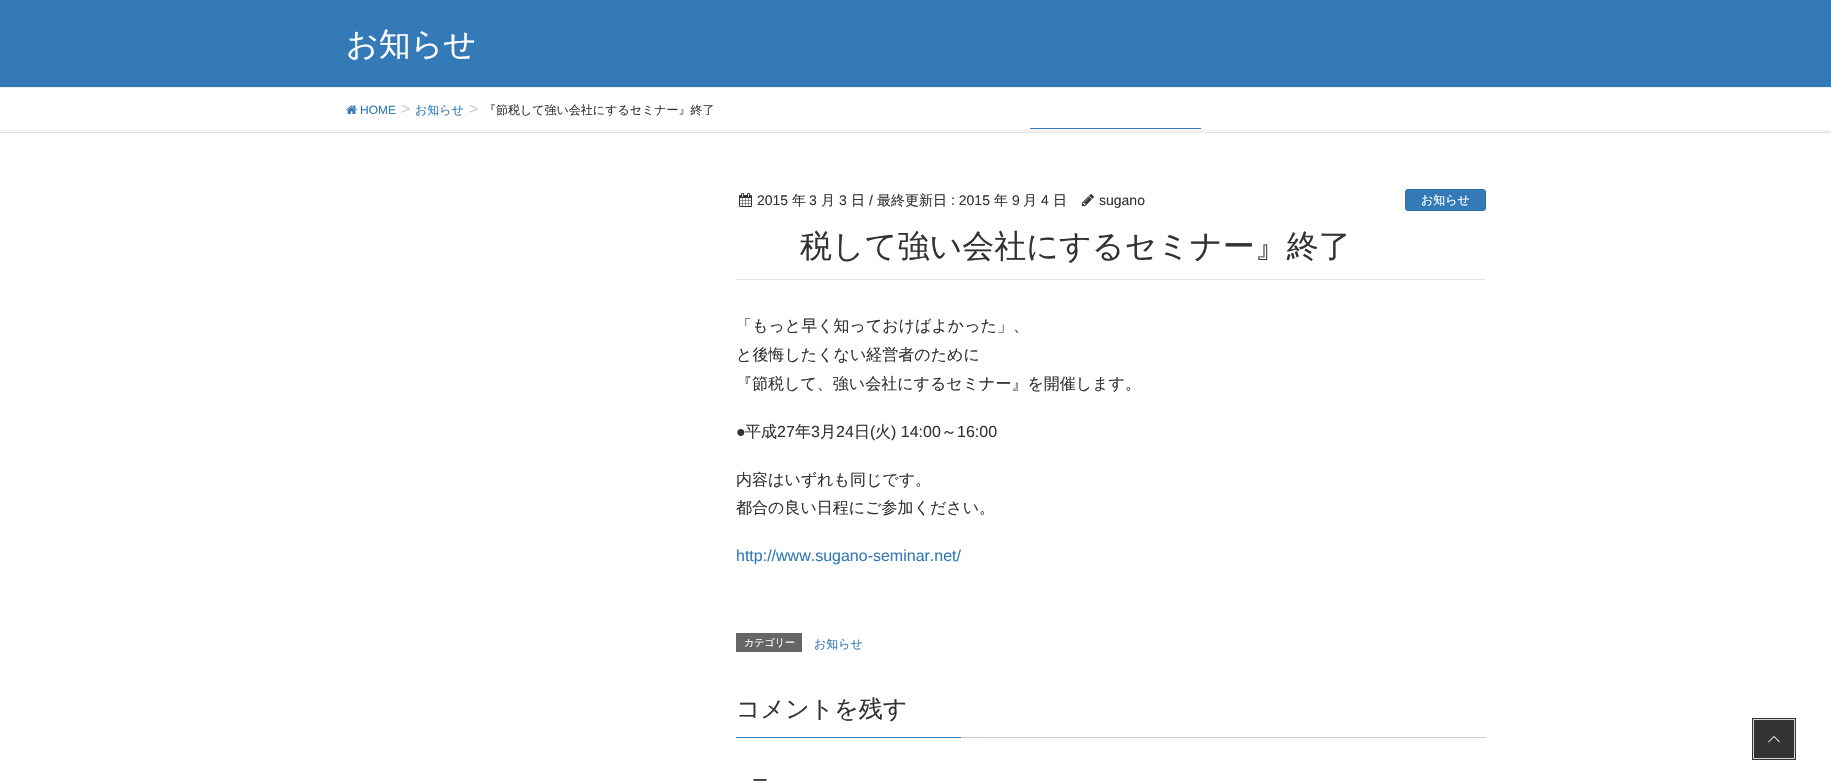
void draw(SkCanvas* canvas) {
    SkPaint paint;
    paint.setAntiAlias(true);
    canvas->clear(0xFFFFFFFF);
    paint.setColor(0xFF337AB7);
    canvas->drawRect(SkRect::MakeXYWH(0, 0, 1831, 87), paint);
    paint.setColor(0xFFEEEEEE);
    canvas->drawRect(SkRect::MakeXYWH(0, 87, 1831, 1), paint);
    paint.setColor(0xFFE5E5E5);
    canvas->drawRect(SkRect::MakeXYWH(0, 132, 1831, 1), paint);
    canvas->drawImageRect(SkImages::DeferredFromEncodedData(SkData::MakeFromFileName("img1.png")), SkRect::MakeXYWH(346, 105, 11, 9), SkSamplingOptions());
    canvas->save();
    canvas->clipRect(SkRect::MakeXYWH(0, 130, 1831, 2));
    paint.setColor(0x1A000000);
    paint.setMaskFilter(SkMaskFilter::MakeBlur(kNormal_SkBlurStyle, 1.5f));
    canvas->drawRect(SkRect::MakeXYWH(0, 1, 1831, 130), paint);
    paint.setMaskFilter(nullptr);
    canvas->restore();
    paint.setColor(0xFF337AB7);
    canvas->drawRect(SkRect::MakeXYWH(1030, 128, 171, 1), paint);
    SkFont font1(fontMgr->matchFamilyStyle("WenQuanYi Zen Hei", SkFontStyle(500, SkFontStyle::kNormal_Width, SkFontStyle::kUpright_Slant)), 32);
    font1.setSubpixel(true);
    paint.setColor(0xFFFFFFFF);
    canvas->drawString("お知らせ", 346, 55, font1, paint);
    SkFont font2(fontMgr->matchFamilyStyle("Liberation Sans", SkFontStyle::Normal()), 12);
    font2.setSubpixel(true);
    paint.setColor(0xFF337AB7);
    canvas->drawString("HOME", 360, 114, font2, paint);
    SkFont font3(fontMgr->matchFamilyStyle("Liberation Sans", SkFontStyle::Normal()), 16);
    font3.setSubpixel(true);
    paint.setColor(0xFFCCCCCC);
    canvas->drawString(">", 401, 114, font3, paint);
    SkFont font4(fontMgr->matchFamilyStyle("WenQuanYi Zen Hei", SkFontStyle(500, SkFontStyle::kNormal_Width, SkFontStyle::kUpright_Slant)), 12);
    font4.setSubpixel(true);
    paint.setColor(0xFF337AB7);
    canvas->drawString("お知らせ", 415, 114, font4, paint);
    paint.setColor(0xFFCCCCCC);
    canvas->drawString(">", 469, 114, font3, paint);
    paint.setColor(0xFF333333);
    canvas->drawString("『節税して強い会社にするセミナー』終了", 484, 114, font4, paint);
    paint.setColor(0xFFE5E5E5);
    canvas->drawRect(SkRect::MakeXYWH(736, 279, 750, 1), paint);
    canvas->drawImageRect(SkImages::DeferredFromEncodedData(SkData::MakeFromFileName("img2.png")), SkRect::MakeXYWH(739, 193, 13, 14), SkSamplingOptions());
    SkFont font5(fontMgr->matchFamilyStyle("Liberation Sans", SkFontStyle::Normal()), 14);
    font5.setSubpixel(true);
    paint.setColor(0xFF333333);
    canvas->drawString("2015", 757, 205, font5, paint);
    SkFont font6(fontMgr->matchFamilyStyle("WenQuanYi Zen Hei", SkFontStyle(500, SkFontStyle::kNormal_Width, SkFontStyle::kUpright_Slant)), 14);
    font6.setSubpixel(true);
    canvas->drawString("年", 792, 205, font6, paint);
    canvas->drawString("3", 809, 205, font5, paint);
    canvas->drawString("月", 821, 205, font6, paint);
    canvas->drawString("3", 839, 205, font5, paint);
    canvas->drawString("日", 851, 205, font6, paint);
    canvas->drawString("/", 869, 205, font5, paint);
    canvas->drawString("最終更新日", 877, 205, font6, paint);
    canvas->drawString(": 2015", 951, 205, font5, paint);
    canvas->drawString("年", 994, 205, font6, paint);
    canvas->drawString("9", 1012, 205, font5, paint);
    canvas->drawString("月", 1023, 205, font6, paint);
    canvas->drawString("4", 1041, 205, font5, paint);
    canvas->drawString("日", 1053, 205, font6, paint);
    canvas->drawImageRect(SkImages::DeferredFromEncodedData(SkData::MakeFromFileName("img3.png")), SkRect::MakeXYWH(1082, 194, 12, 12), SkSamplingOptions());
    canvas->drawString("sugano", 1099, 205, font5, paint);
    paint.setColor(0xFF337AB7);
    canvas->drawRoundRect(SkRect::MakeXYWH(1405.5f, 189.5f, 80, 21), 2.5f, 2.5f, paint);
    paint.setStyle(SkPaint::kStroke_Style);
    paint.setStrokeWidth(1);
    paint.setColor(0xFF2E6DA4);
    canvas->drawRoundRect(SkRect::MakeXYWH(1405.5f, 189.5f, 80, 21), 2.5f, 2.5f, paint);
    paint.setStyle(SkPaint::kFill_Style);
    paint.setColor(0xFFFFFFFF);
    canvas->drawString("お知らせ", 1421, 204, font4, paint);
    SkFont font7(fontMgr->matchFamilyStyle("Noto Sans", SkFontStyle(500, SkFontStyle::kNormal_Width, SkFontStyle::kUpright_Slant)), 32);
    font7.setSubpixel(true);
    paint.setColor(0xFF337AB7);
    canvas->drawString("『節", 736, 257, font7, paint);
    paint.setColor(0xFF333333);
    canvas->drawString("税して強い会社にするセミナー』終了", 800, 257, font1, paint);
    SkFont font8(fontMgr->matchFamilyStyle("WenQuanYi Zen Hei", SkFontStyle(500, SkFontStyle::kNormal_Width, SkFontStyle::kUpright_Slant)), 16);
    font8.setSubpixel(true);
    canvas->drawString("「もっと早く知っておけばよかった」、", 736, 331, font8, paint);
    canvas->drawString("と後悔したくない経営者のために", 736, 360, font8, paint);
    canvas->drawString("『節税して、強い会社にするセミナー』を開催します。", 736, 389, font8, paint);
    canvas->drawString("●", 736, 437, font3, paint);
    canvas->drawString("平成", 745, 437, font8, paint);
    canvas->drawString("27", 777, 437, font3, paint);
    canvas->drawString("年", 795, 437, font8, paint);
    canvas->drawString("3", 811, 437, font3, paint);
    canvas->drawString("月", 820, 437, font8, paint);
    canvas->drawString("24", 836, 437, font3, paint);
    canvas->drawString("日", 854, 437, font8, paint);
    canvas->drawString("(", 870, 437, font3, paint);
    canvas->drawString("火", 875, 437, font8, paint);
    canvas->drawString(") 14:00", 891, 437, font3, paint);
    canvas->drawString("～", 941, 437, font8, paint);
    canvas->drawString("16:00", 957, 437, font3, paint);
    canvas->drawString("内容はいずれも同じです。", 736, 485, font8, paint);
    canvas->drawString("都合の良い日程にご参加ください。", 736, 513, font8, paint);
    paint.setColor(0xFF337AB7);
    canvas->drawString("http://www.sugano-seminar.net/", 736, 561, font3, paint);
    paint.setColor(0xFF666666);
    canvas->drawRect(SkRect::MakeXYWH(736, 633, 66, 19), paint);
    SkFont font9(fontMgr->matchFamilyStyle("WenQuanYi Zen Hei", SkFontStyle(500, SkFontStyle::kNormal_Width, SkFontStyle::kUpright_Slant)), 10);
    font9.setSubpixel(true);
    paint.setColor(0xFFFFFFFF);
    canvas->drawString("カテゴリー", 744, 646, font9, paint);
    paint.setColor(0xFF337AB7);
    canvas->drawString("お知らせ", 814, 648, font4, paint);
    paint.setColor(0xFFCCCCCC);
    canvas->drawRect(SkRect::MakeXYWH(961, 737, 525, 1), paint);
    SkFont font10(fontMgr->matchFamilyStyle("WenQuanYi Zen Hei", SkFontStyle(500, SkFontStyle::kNormal_Width, SkFontStyle::kUpright_Slant)), 24);
    font10.setSubpixel(true);
    paint.setColor(0xFF333333);
    canvas->drawString("コメントを残す", 736, 717, font10, paint);
    paint.setColor(0xFF337AB7);
    canvas->drawRect(SkRect::MakeXYWH(736, 737, 225, 1), paint);
    paint.setColor(0xFF333333);
    canvas->drawString("ー", 752, 786, font8, paint);
    paint.setStyle(SkPaint::kStroke_Style);
    paint.setStrokeWidth(2);
    canvas->drawRect(SkRect::MakeXYWH(1753, 719, 42, 40), paint);
    paint.setStrokeWidth(1);
    paint.setColor(0xFFD6D6D6);
    canvas->drawRect(SkRect::MakeXYWH(1753.5f, 719.5f, 41, 39), paint);
    paint.setStyle(SkPaint::kFill_Style);
    paint.setColor(0xFF333333);
    canvas->drawRect(SkRect::MakeXYWH(1754, 720, 40, 38), paint);
    canvas->drawImageRect(SkImages::DeferredFromEncodedData(SkData::MakeFromFileName("img4.png")), SkRect::MakeXYWH(1768, 736, 12, 7), SkSamplingOptions());
}
